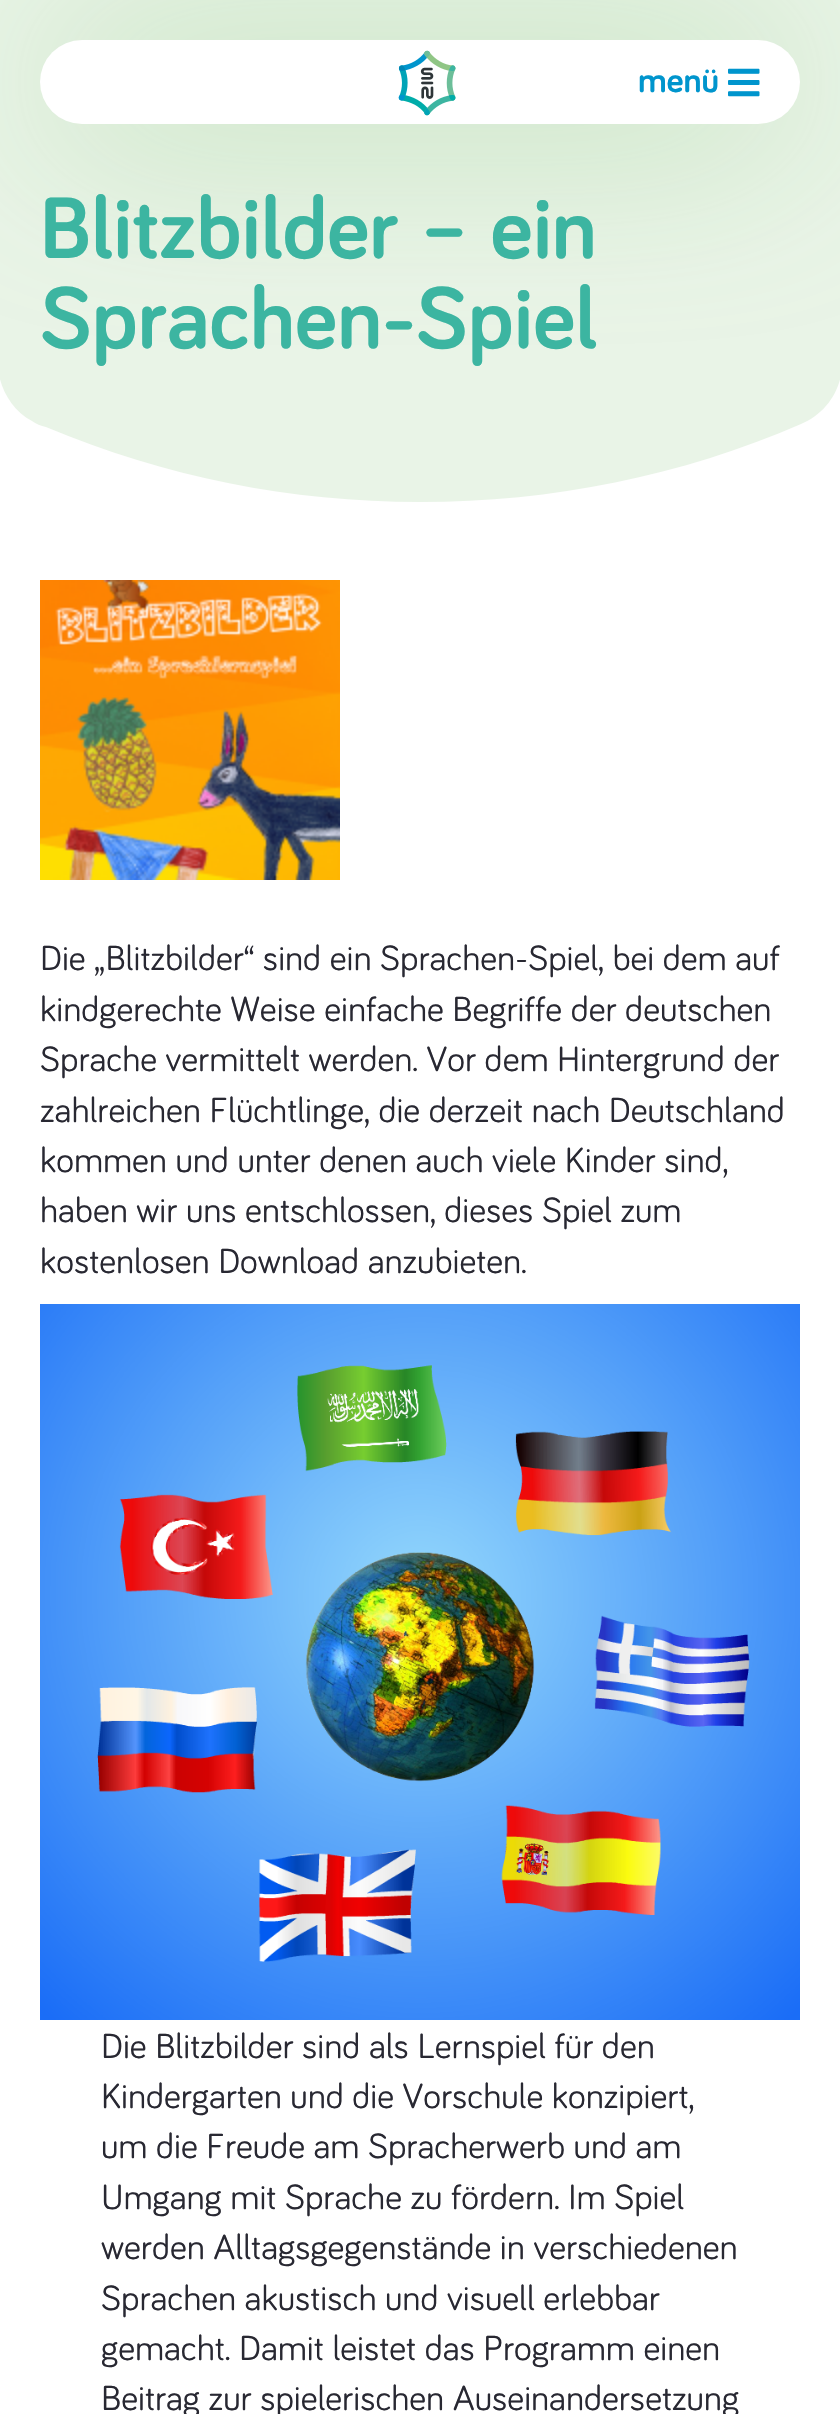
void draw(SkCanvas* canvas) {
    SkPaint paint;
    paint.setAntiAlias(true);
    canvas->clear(0xFFFFFFFF);
    paint.setColor(0xFFE9F4E7);
    canvas->drawRect(SkRect::MakeXYWH(0, 0, 840, 502), paint);
    canvas->save();
    canvas->clipRect(SkRect::MakeXYWH(0, 368, 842, 150));
    paint.setColor(0xFFFFFFFF);
    canvas->drawPath(SkPathBuilder().moveTo(-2, 368).lineTo(-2, 519).lineTo(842, 519).lineTo(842, 368).cubicTo(840, 392, 825, 414, 801, 424).cubicTo(681, 476, 552, 502, 420, 502).cubicTo(291, 502, 165, 477, 46, 427).cubicTo(41, 426, 36, 424, 32, 421).cubicTo(12, 410, 0, 389, -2, 368).close().detach(), paint);
    canvas->restore();
    paint.setColor(0x9990C685);
    paint.setMaskFilter(SkMaskFilter::MakeBlur(kNormal_SkBlurStyle, 100));
    canvas->drawRoundRect(SkRect::MakeXYWH(40, 40, 760, 84), 42, 42, paint);
    paint.setMaskFilter(nullptr);
    paint.setColor(0xFFFFFFFF);
    canvas->drawRoundRect(SkRect::MakeXYWH(40, 40, 760, 84), 42, 42, paint);
    canvas->drawImageRect(SkImages::DeferredFromEncodedData(SkData::MakeFromFileName("img1.png")), SkRect::MakeXYWH(398, 50, 58, 66), SkSamplingOptions());
    SkFont font1(fontMgr->matchFamilyStyle("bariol", SkFontStyle::Bold()), 36);
    font1.setSubpixel(true);
    paint.setColor(0xFF0095CD);
    canvas->drawString("menü", 638, 92, font1, paint);
    canvas->drawImageRect(SkImages::DeferredFromEncodedData(SkData::MakeFromFileName("img2.png")), SkRect::MakeXYWH(728, 68, 32, 29), SkSamplingOptions());
    SkFont font2(fontMgr->matchFamilyStyle("bariol", SkFontStyle::Bold()), 90);
    font2.setSubpixel(true);
    paint.setColor(0xFF3CB5A1);
    canvas->drawString("Blitzbilder – ein", 40, 258, font2, paint);
    canvas->drawString("Sprachen-Spiel", 40, 348, font2, paint);
    canvas->drawImageRect(SkImages::DeferredFromEncodedData(SkData::MakeFromFileName("img3.png")), SkRect::MakeXYWH(40, 580, 300, 300), SkSamplingOptions());
    SkFont font3(fontMgr->matchFamilyStyle("bariol", SkFontStyle::Normal()), 36);
    font3.setSubpixel(true);
    paint.setColor(0xFF282832);
    canvas->drawString("Die „Blitzbilder“ sind ein Sprachen-Spiel, bei dem auf", 40, 970, font3, paint);
    canvas->drawString("kindgerechte Weise einfache Begriffe der deutschen", 40, 1021, font3, paint);
    canvas->drawString("Sprache vermittelt werden. Vor dem Hintergrund der", 40, 1071, font3, paint);
    canvas->drawString("zahlreichen Flüchtlinge, die derzeit nach Deutschland", 40, 1122, font3, paint);
    canvas->drawString("kommen und unter denen auch viele Kinder sind,", 40, 1172, font3, paint);
    canvas->drawString("haben wir uns entschlossen, dieses Spiel zum", 40, 1222, font3, paint);
    canvas->drawString("kostenlosen Download anzubieten.", 40, 1273, font3, paint);
    canvas->drawImageRect(SkImages::DeferredFromEncodedData(SkData::MakeFromFileName("img4.png")), SkRect::MakeXYWH(40, 1304, 760, 716), SkSamplingOptions());
    canvas->drawString("Die Blitzbilder sind als Lernspiel für den", 101, 2058, font3, paint);
    canvas->drawString("Kindergarten und die Vorschule konzipiert,", 101, 2108, font3, paint);
    canvas->drawString("um die Freude am Spracherwerb und am", 101, 2158, font3, paint);
    canvas->drawString("Umgang mit Sprache zu fördern. Im Spiel", 101, 2209, font3, paint);
    canvas->drawString("werden Alltagsgegenstände in verschiedenen", 101, 2259, font3, paint);
    canvas->drawString("Sprachen akustisch und visuell erlebbar", 101, 2310, font3, paint);
    canvas->drawString("gemacht. Damit leistet das Programm einen", 101, 2360, font3, paint);
    canvas->drawString("Beitrag zur spielerischen Auseinandersetzung", 101, 2410, font3, paint);
}
